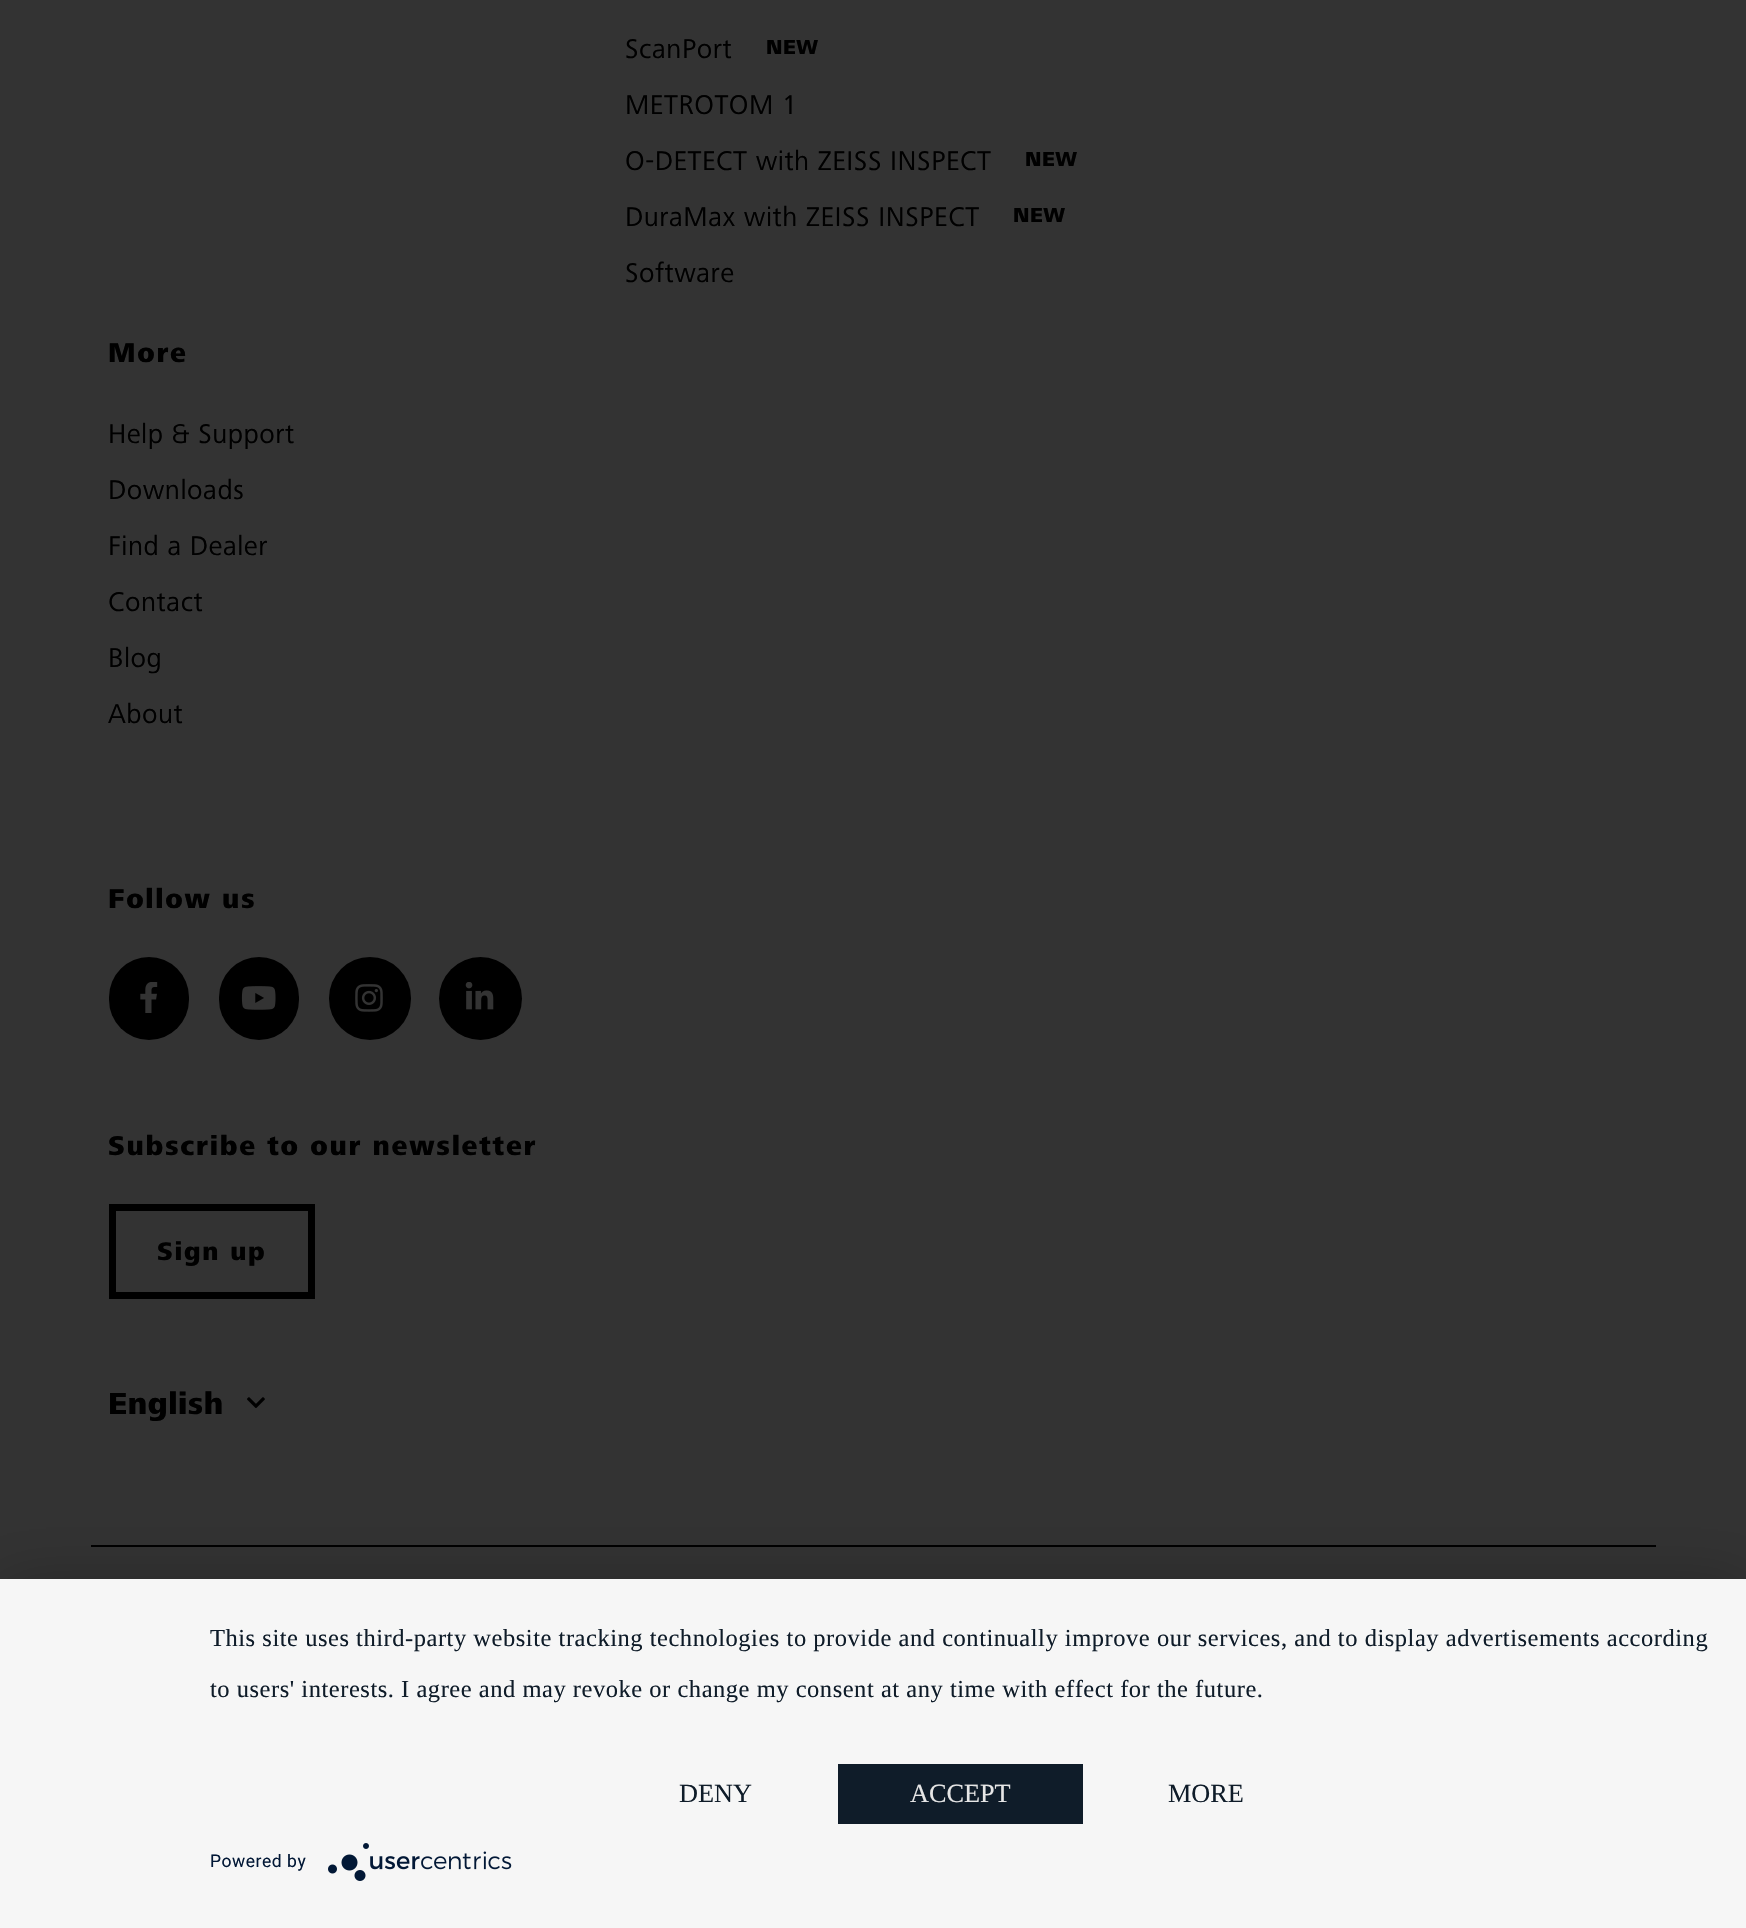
void draw(SkCanvas* canvas) {
    SkPaint paint;
    paint.setAntiAlias(true);
    auto spacedText = [&](const char* s, float x, float y, const SkFont& font, const SkPaint& ink, float letter, float word) {
        std::vector<SkGlyphID> glyphs(font.countText(s, strlen(s), SkTextEncoding::kUTF8));
        std::vector<float> xs(glyphs.size());
        font.textToGlyphs(s, strlen(s), SkTextEncoding::kUTF8, glyphs);
        font.getXPos(glyphs, xs, x);
        float extra = 0;
        for (size_t i = 0; i < glyphs.size(); i++) {
            xs[i] += extra;
            extra += letter + word * (glyphs[i] == font.unicharToGlyph(' '));
        }
        canvas->drawTextBlob(SkTextBlob::MakeFromPosHGlyphs(glyphs, xs, y, font), 0, 0, ink);
    };
    canvas->clear(0xFF333333);
    SkFont font1(fontMgr->matchFamilyStyle("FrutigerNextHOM", SkFontStyle::Normal()), 28);
    font1.setSubpixel(true);
    paint.setColor(0xFF000000);
    spacedText("ScanPort", 625, 58, font1, paint, 0.53f, 0);
    SkFont font2(fontMgr->matchFamilyStyle("FrutigerNextHOM", SkFontStyle(900, SkFontStyle::kNormal_Width, SkFontStyle::kUpright_Slant)), 21);
    font2.setSubpixel(true);
    spacedText("NEW", 766, 54, font2, paint, 0.53f, 0);
    spacedText("METROTOM 1", 625, 114, font1, paint, 0.53f, 0);
    spacedText("O-DETECT with ZEISS INSPECT", 625, 170, font1, paint, 0.53f, 0);
    spacedText("NEW", 1025, 166, font2, paint, 0.53f, 0);
    spacedText("DuraMax with ZEISS INSPECT", 625, 226, font1, paint, 0.53f, 0);
    spacedText("NEW", 1013, 222, font2, paint, 0.53f, 0);
    spacedText("Software", 625, 282, font1, paint, 0.53f, 0);
    SkFont font3(fontMgr->matchFamilyStyle("FrutigerNextHOM", SkFontStyle(900, SkFontStyle::kNormal_Width, SkFontStyle::kUpright_Slant)), 28);
    font3.setSubpixel(true);
    spacedText("More", 108, 362, font3, paint, 1.75f, 0);
    spacedText("Help & Support", 108, 443, font1, paint, 0.53f, 0);
    spacedText("Downloads", 108, 499, font1, paint, 0.53f, 0);
    spacedText("Find a Dealer", 108, 555, font1, paint, 0.53f, 0);
    spacedText("Contact", 108, 611, font1, paint, 0.53f, 0);
    spacedText("Blog", 108, 667, font1, paint, 0.53f, 0);
    spacedText("About", 108, 723, font1, paint, 0.53f, 0);
    spacedText("Follow us", 108, 908, font3, paint, 1.75f, 0);
    canvas->drawRoundRect(SkRect::MakeXYWH(109, 957, 80, 83), 40, 40, paint);
    canvas->drawImageRect(SkImages::DeferredFromEncodedData(SkData::MakeFromFileName("img1.png")), SkRect::MakeXYWH(140, 982, 18, 31), SkSamplingOptions());
    canvas->drawRoundRect(SkRect::MakeXYWH(219, 957, 80, 83), 40, 40, paint);
    canvas->drawImageRect(SkImages::DeferredFromEncodedData(SkData::MakeFromFileName("img2.png")), SkRect::MakeXYWH(241, 986, 35, 24), SkSamplingOptions());
    canvas->drawRoundRect(SkRect::MakeXYWH(329, 957, 82, 83), 41, 41, paint);
    canvas->drawImageRect(SkImages::DeferredFromEncodedData(SkData::MakeFromFileName("img3.png")), SkRect::MakeXYWH(355, 984, 28, 28), SkSamplingOptions());
    canvas->drawCircle(480.5f, 998.5f, 41.5f, paint);
    canvas->drawImageRect(SkImages::DeferredFromEncodedData(SkData::MakeFromFileName("img4.png")), SkRect::MakeXYWH(465, 982, 29, 28), SkSamplingOptions());
    spacedText("Subscribe to our newsletter", 108, 1155, font3, paint, 1.75f, 0);
    paint.setStyle(SkPaint::kStroke_Style);
    paint.setStrokeWidth(7);
    canvas->drawRect(SkRect::MakeXYWH(112.5f, 1207.5f, 199, 88), paint);
    SkFont font4(fontMgr->matchFamilyStyle("FrutigerNextHOM", SkFontStyle(900, SkFontStyle::kNormal_Width, SkFontStyle::kUpright_Slant)), 26.25f);
    font4.setSubpixel(true);
    paint.setStyle(SkPaint::kFill_Style);
    spacedText("Sign up", 157, 1260, font4, paint, 1.75f, 0);
    SkFont font5(fontMgr->matchFamilyStyle("FrutigerNextHOM", SkFontStyle(900, SkFontStyle::kNormal_Width, SkFontStyle::kUpright_Slant)), 31.5f);
    font5.setSubpixel(true);
    spacedText("English", 108, 1414, font5, paint, 0.53f, 0);
    canvas->drawImageRect(SkImages::DeferredFromEncodedData(SkData::MakeFromFileName("img5.png")), SkRect::MakeXYWH(247, 1397, 18, 11), SkSamplingOptions());
    canvas->drawRect(SkRect::MakeXYWH(91, 1545, 1565, 2), paint);
    paint.setColor(0x4D000000);
    paint.setMaskFilter(SkMaskFilter::MakeBlur(kNormal_SkBlurStyle, 31.5f));
    canvas->drawRect(SkRect::MakeXYWH(0, 1589, 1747, 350), paint);
    paint.setMaskFilter(nullptr);
    paint.setColor(0xFFF6F6F6);
    canvas->drawRect(SkRect::MakeXYWH(0, 1579, 1746, 349), paint);
    SkFont font6(fontMgr->matchFamilyStyle("Liberation Serif", SkFontStyle::Normal()), 24.5f);
    font6.setSubpixel(true);
    paint.setColor(0xFF0F1C29);
    spacedText("This site uses third-party website tracking technologies to provide and continually improve our services, and to display advertisements according", 210, 1646, font6, paint, 0.53f, 0);
    spacedText("to users' interests. I agree and may revoke or change my consent at any time with effect for the future.", 210, 1697, font6, paint, 0.53f, 0);
    SkFont font7(fontMgr->matchFamilyStyle("Liberation Serif", SkFontStyle::Normal()), 26.25f);
    font7.setSubpixel(true);
    canvas->drawString("DENY", 679, 1802, font7, paint);
    canvas->drawRect(SkRect::MakeXYWH(838, 1764, 245, 60), paint);
    paint.setColor(0xFFE6E6E6);
    canvas->drawString("ACCEPT", 910, 1802, font7, paint);
    paint.setColor(0xFF0F1C29);
    canvas->drawString("MORE", 1168, 1802, font7, paint);
    SkFont font8(fontMgr->matchFamilyStyle("Roboto", SkFontStyle::Normal()), 17.5f);
    font8.setSubpixel(true);
    paint.setColor(0xFF021836);
    spacedText("Powered by", 210, 1867, font8, paint, 0.53f, 0);
    canvas->drawImageRect(SkImages::DeferredFromEncodedData(SkData::MakeFromFileName("img6.png")), SkRect::MakeXYWH(328, 1843, 184, 38), SkSamplingOptions());
}
